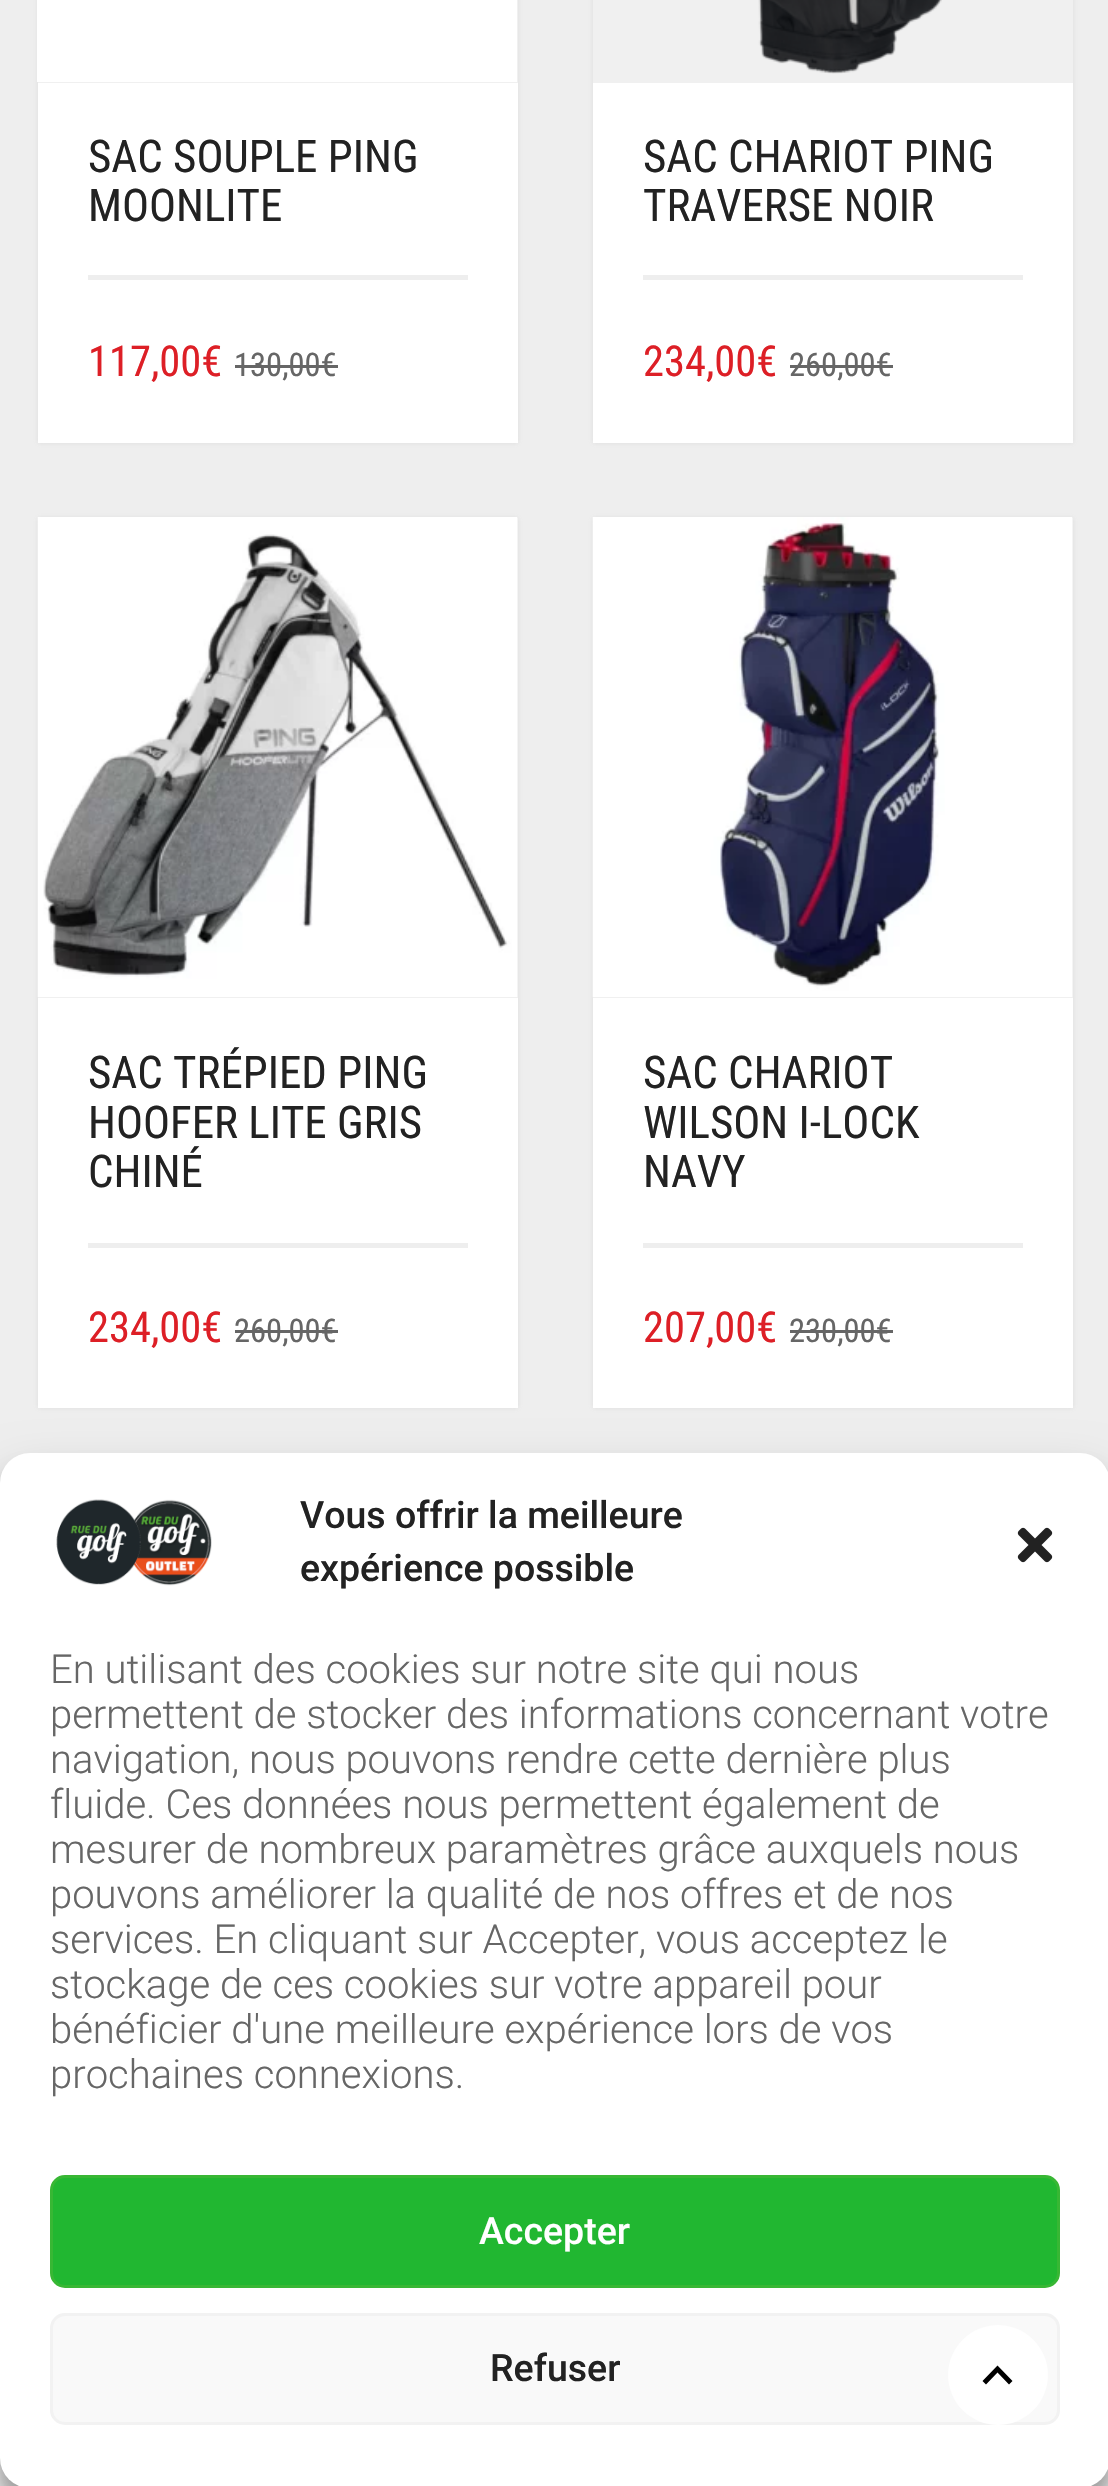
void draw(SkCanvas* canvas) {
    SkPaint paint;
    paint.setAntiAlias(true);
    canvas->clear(0xFFEEEEEE);
    paint.setColor(0x80CCCCCC);
    paint.setMaskFilter(SkMaskFilter::MakeBlur(kNormal_SkBlurStyle, 2.5f));
    canvas->drawRect(SkRect::MakeXYWH(38, -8, 480, 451), paint);
    paint.setMaskFilter(nullptr);
    paint.setColor(0xFFFFFFFF);
    canvas->drawRect(SkRect::MakeXYWH(38, 83, 480, 360), paint);
    paint.setColor(0xFFF0F0F0);
    canvas->drawRect(SkRect::MakeXYWH(38, 0, 480, 83), paint);
    paint.setColor(0xFFFFFFFF);
    canvas->drawRect(SkRect::MakeXYWH(37, 0, 480, 82), paint);
    SkFont font1(fontMgr->matchFamilyStyle("Roboto Condensed", SkFontStyle::Normal()), 45);
    font1.setSubpixel(true);
    paint.setColor(0xFF222222);
    canvas->drawString("SAC SOUPLE PING", 88, 172, font1, paint);
    canvas->drawString("MOONLITE", 88, 221, font1, paint);
    paint.setColor(0xFFEEEEEE);
    canvas->drawRect(SkRect::MakeXYWH(88, 275, 380, 5), paint);
    SkFont font2(fontMgr->matchFamilyStyle("Roboto Condensed", SkFontStyle::Normal()), 42.5f);
    font2.setSubpixel(true);
    paint.setColor(0xFFDD1F26);
    canvas->drawString("117,00€", 88, 376, font2, paint);
    SkFont font3(fontMgr->matchFamilyStyle("Roboto Condensed", SkFontStyle::Normal()), 32.5f);
    font3.setSubpixel(true);
    paint.setColor(0xFF666666);
    canvas->drawString("130,00€", 234, 376, font3, paint);
    canvas->drawRect(SkRect::MakeXYWH(235, 365, 103, 3), paint);
    paint.setColor(0x80CCCCCC);
    paint.setMaskFilter(SkMaskFilter::MakeBlur(kNormal_SkBlurStyle, 2.5f));
    canvas->drawRect(SkRect::MakeXYWH(593, -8, 480, 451), paint);
    paint.setMaskFilter(nullptr);
    paint.setColor(0xFFFFFFFF);
    canvas->drawRect(SkRect::MakeXYWH(593, 83, 480, 360), paint);
    paint.setColor(0xFFF0F0F0);
    canvas->drawRect(SkRect::MakeXYWH(593, 0, 480, 83), paint);
    canvas->drawImageRect(SkImages::DeferredFromEncodedData(SkData::MakeFromFileName("img1.png")), SkRect::MakeXYWH(758, 0, 184, 74), SkSamplingOptions());
    paint.setColor(0xFF222222);
    canvas->drawString("SAC CHARIOT PING", 643, 172, font1, paint);
    canvas->drawString("TRAVERSE NOIR", 643, 221, font1, paint);
    paint.setColor(0xFFEEEEEE);
    canvas->drawRect(SkRect::MakeXYWH(643, 275, 380, 5), paint);
    paint.setColor(0xFFDD1F26);
    canvas->drawString("234,00€", 643, 376, font2, paint);
    paint.setColor(0xFF666666);
    canvas->drawString("260,00€", 789, 376, font3, paint);
    canvas->drawRect(SkRect::MakeXYWH(790, 365, 103, 3), paint);
    paint.setColor(0x80CCCCCC);
    paint.setMaskFilter(SkMaskFilter::MakeBlur(kNormal_SkBlurStyle, 2.5f));
    canvas->drawRect(SkRect::MakeXYWH(38, 518, 480, 890), paint);
    paint.setMaskFilter(nullptr);
    paint.setColor(0xFFFFFFFF);
    canvas->drawRect(SkRect::MakeXYWH(38, 998, 480, 410), paint);
    paint.setColor(0xFFF0F0F0);
    canvas->drawRect(SkRect::MakeXYWH(38, 518, 480, 480), paint);
    canvas->drawImageRect(SkImages::DeferredFromEncodedData(SkData::MakeFromFileName("img2.png")), SkRect::MakeXYWH(37, 517, 481, 480), SkSamplingOptions());
    paint.setColor(0xFF222222);
    canvas->drawString("SAC TRÉPIED PING", 88, 1088, font1, paint);
    canvas->drawString("HOOFER LITE GRIS", 88, 1138, font1, paint);
    canvas->drawString("CHINÉ", 88, 1187, font1, paint);
    paint.setColor(0xFFEEEEEE);
    canvas->drawRect(SkRect::MakeXYWH(88, 1243, 380, 5), paint);
    paint.setColor(0xFFDD1F26);
    canvas->drawString("234,00€", 88, 1342, font2, paint);
    paint.setColor(0xFF666666);
    canvas->drawString("260,00€", 234, 1342, font3, paint);
    canvas->drawRect(SkRect::MakeXYWH(235, 1330, 103, 3), paint);
    paint.setColor(0x80CCCCCC);
    paint.setMaskFilter(SkMaskFilter::MakeBlur(kNormal_SkBlurStyle, 2.5f));
    canvas->drawRect(SkRect::MakeXYWH(593, 518, 480, 890), paint);
    paint.setMaskFilter(nullptr);
    paint.setColor(0xFFFFFFFF);
    canvas->drawRect(SkRect::MakeXYWH(593, 998, 480, 410), paint);
    paint.setColor(0xFFF0F0F0);
    canvas->drawRect(SkRect::MakeXYWH(593, 518, 480, 480), paint);
    canvas->drawImageRect(SkImages::DeferredFromEncodedData(SkData::MakeFromFileName("img3.png")), SkRect::MakeXYWH(592, 517, 481, 480), SkSamplingOptions());
    paint.setColor(0xFF222222);
    canvas->drawString("SAC CHARIOT", 643, 1088, font1, paint);
    canvas->drawString("WILSON I-LOCK", 643, 1138, font1, paint);
    canvas->drawString("NAVY", 643, 1187, font1, paint);
    paint.setColor(0xFFEEEEEE);
    canvas->drawRect(SkRect::MakeXYWH(643, 1243, 380, 5), paint);
    paint.setColor(0xFFDD1F26);
    canvas->drawString("207,00€", 643, 1342, font2, paint);
    paint.setColor(0xFF666666);
    canvas->drawString("230,00€", 789, 1342, font3, paint);
    canvas->drawRect(SkRect::MakeXYWH(790, 1330, 103, 3), paint);
    paint.setColor(0x3B000000);
    paint.setMaskFilter(SkMaskFilter::MakeBlur(kNormal_SkBlurStyle, 7.5f));
    canvas->drawRoundRect(SkRect::MakeXYWH(0, 1468, 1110, 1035), 30, 30, paint);
    paint.setMaskFilter(nullptr);
    paint.setColor(0x30000000);
    paint.setMaskFilter(SkMaskFilter::MakeBlur(kNormal_SkBlurStyle, 25));
    canvas->drawRoundRect(SkRect::MakeXYWH(0, 1478, 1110, 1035), 30, 30, paint);
    paint.setMaskFilter(nullptr);
    paint.setColor(0xFFFFFFFF);
    canvas->drawRoundRect(SkRect::MakeXYWH(0, 1453, 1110, 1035), 30, 30, paint);
    canvas->drawImageRect(SkImages::DeferredFromEncodedData(SkData::MakeFromFileName("img4.png")), SkRect::MakeXYWH(56, 1499, 156, 87), SkSamplingOptions());
    SkFont font4(fontMgr->matchFamilyStyle("Roboto", SkFontStyle(500, SkFontStyle::kNormal_Width, SkFontStyle::kUpright_Slant)), 37.5f);
    font4.setSubpixel(true);
    paint.setColor(0xFF222222);
    canvas->drawString("Vous offrir la meilleure", 300, 1528, font4, paint);
    canvas->drawString("expérience possible", 300, 1581, font4, paint);
    canvas->drawImageRect(SkImages::DeferredFromEncodedData(SkData::MakeFromFileName("img5.png")), SkRect::MakeXYWH(1017, 1527, 36, 36), SkSamplingOptions());
    SkFont font5(fontMgr->matchFamilyStyle("Roboto", SkFontStyle(300, SkFontStyle::kNormal_Width, SkFontStyle::kUpright_Slant)), 40);
    font5.setSubpixel(true);
    paint.setColor(0xFF666666);
    canvas->drawString("En utilisant des cookies sur notre site qui nous", 50, 1683, font5, paint);
    canvas->drawString("permettent de stocker des informations concernant votre", 50, 1728, font5, paint);
    canvas->drawString("navigation, nous pouvons rendre cette dernière plus", 50, 1773, font5, paint);
    canvas->drawString("fluide. Ces données nous permettent également de", 50, 1818, font5, paint);
    canvas->drawString("mesurer de nombreux paramètres grâce auxquels nous", 50, 1863, font5, paint);
    canvas->drawString("pouvons améliorer la qualité de nos offres et de nos", 50, 1908, font5, paint);
    canvas->drawString("services. En cliquant sur Accepter, vous acceptez le", 50, 1953, font5, paint);
    canvas->drawString("stockage de ces cookies sur votre appareil pour", 50, 1998, font5, paint);
    canvas->drawString("bénéficier d'une meilleure expérience lors de vos", 50, 2043, font5, paint);
    canvas->drawString("prochaines connexions.", 50, 2088, font5, paint);
    paint.setColor(0xFF21B731);
    canvas->drawRoundRect(SkRect::MakeXYWH(51.5f, 2176.5f, 1007, 110), 13.5f, 13.5f, paint);
    paint.setStyle(SkPaint::kStroke_Style);
    paint.setStrokeWidth(3);
    paint.setColor(0xFF38B734);
    canvas->drawRoundRect(SkRect::MakeXYWH(51.5f, 2176.5f, 1007, 110), 13.5f, 13.5f, paint);
    paint.setStyle(SkPaint::kFill_Style);
    paint.setColor(0xFFFFFFFF);
    canvas->drawString("Accepter", 479, 2244, font4, paint);
    paint.setColor(0xFFF9F9F9);
    canvas->drawRoundRect(SkRect::MakeXYWH(51.5f, 2314.5f, 1007, 109), 13.5f, 13.5f, paint);
    paint.setStyle(SkPaint::kStroke_Style);
    paint.setColor(0xFFF2F2F2);
    canvas->drawRoundRect(SkRect::MakeXYWH(51.5f, 2314.5f, 1007, 109), 13.5f, 13.5f, paint);
    paint.setStyle(SkPaint::kFill_Style);
    paint.setColor(0xFF222222);
    canvas->drawString("Refuser", 490, 2381, font4, paint);
    paint.setColor(0xFFFFFFFF);
    canvas->drawCircle(998, 2375, 50, paint);
    paint.setColor(0xFF000000);
    canvas->drawPath(SkPathBuilder().moveTo(982.5f, 2381).lineTo(986, 2384.5f).lineTo(997.5f, 2372.5f).lineTo(1009, 2384.5f).lineTo(1012.5f, 2381).lineTo(997.5f, 2365.5f).close().detach(), paint);
}
